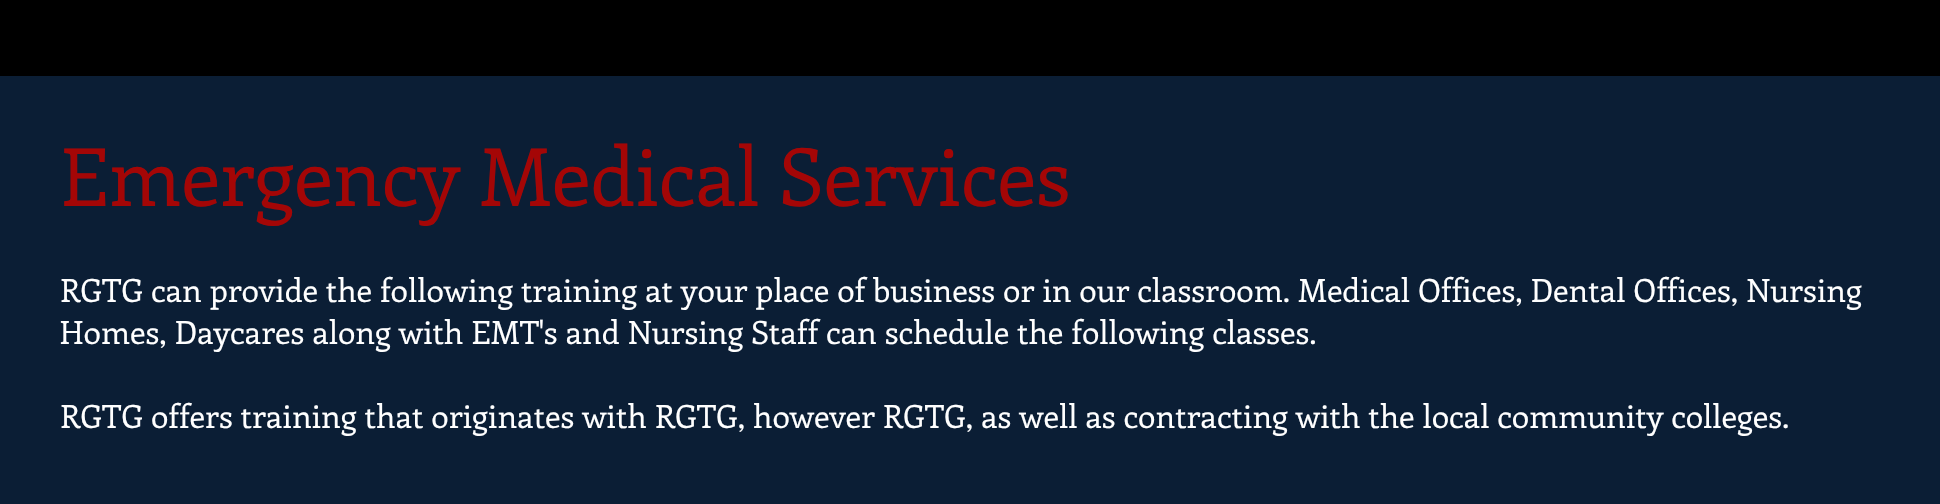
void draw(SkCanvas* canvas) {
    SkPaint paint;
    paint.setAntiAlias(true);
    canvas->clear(0xFF0B1E35);
    paint.setColor(0xFF000000);
    canvas->drawRect(SkRect::MakeXYWH(0, 0, 1940, 76), paint);
    SkFont font1(fontMgr->matchFamilyStyle("Enriqueta", SkFontStyle::Normal()), 80);
    font1.setSubpixel(true);
    paint.setColor(0xFFA40606);
    canvas->drawString("Emergency Medical Services", 60, 206, font1, paint);
    SkFont font2(fontMgr->matchFamilyStyle("Enriqueta", SkFontStyle::Normal()), 32);
    font2.setSubpixel(true);
    paint.setColor(0xFFFFFFFF);
    canvas->drawString("RGTG can provide the following training at your place of business or in our classroom. Medical Offices, Dental Offices, Nursing", 60, 302, font2, paint);
    canvas->drawString("Homes, Daycares along with EMT's and Nursing Staff can schedule the following classes.", 60, 344, font2, paint);
    canvas->drawString("RGTG offers training that originates with RGTG, however RGTG, as well as contracting with the local community colleges.", 60, 428, font2, paint);
}
